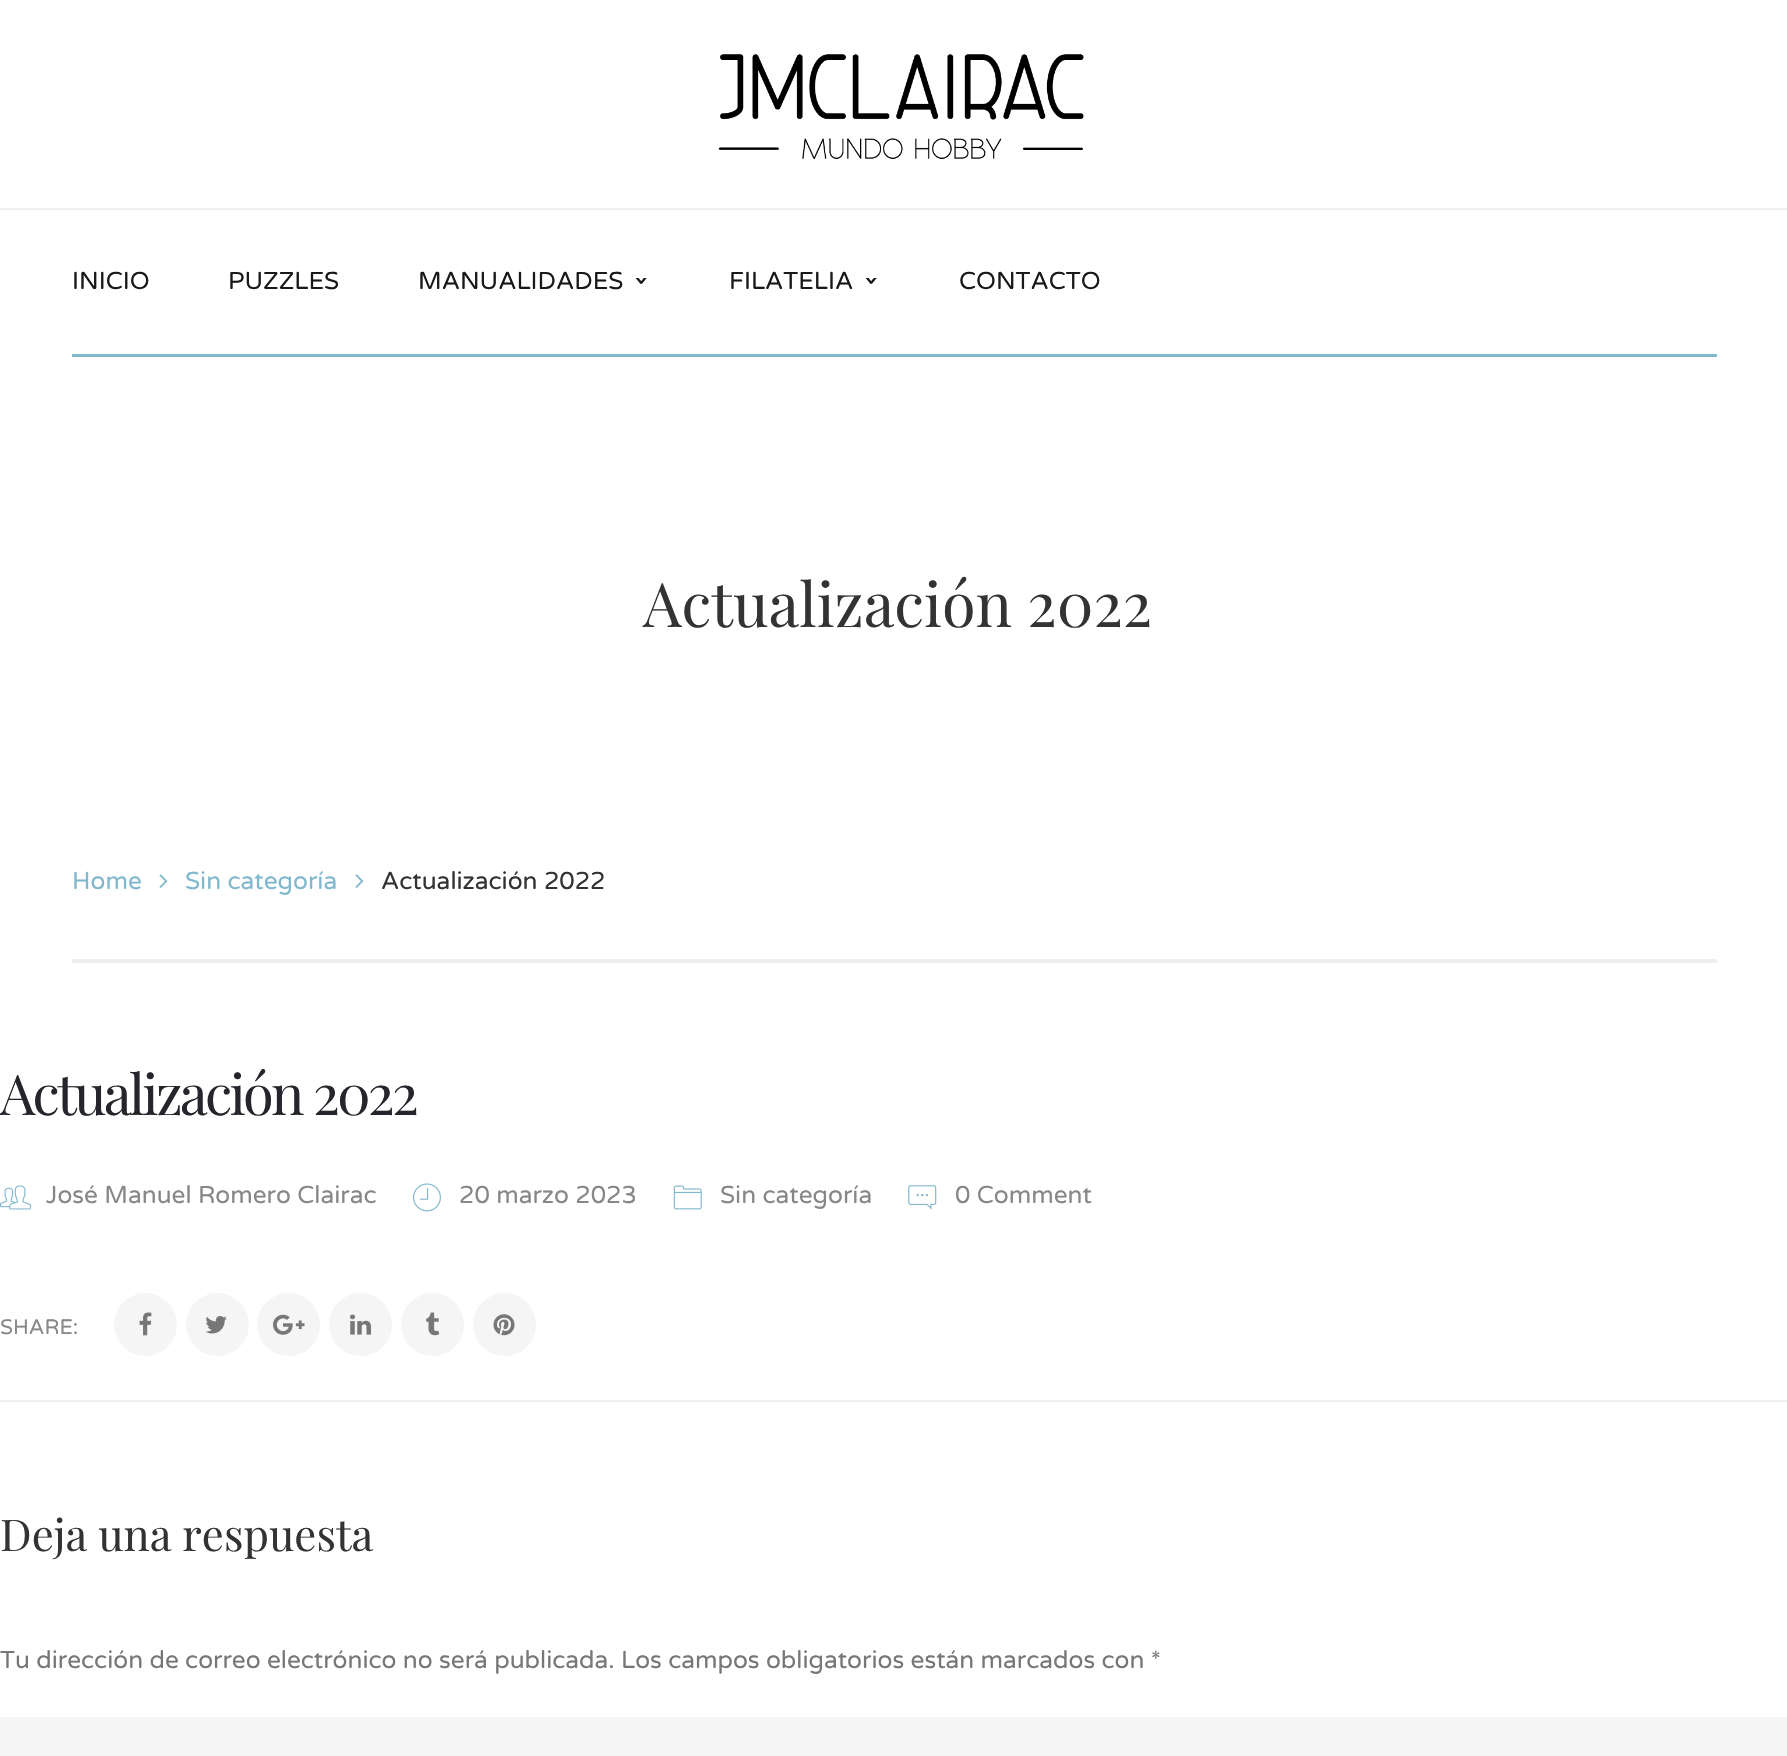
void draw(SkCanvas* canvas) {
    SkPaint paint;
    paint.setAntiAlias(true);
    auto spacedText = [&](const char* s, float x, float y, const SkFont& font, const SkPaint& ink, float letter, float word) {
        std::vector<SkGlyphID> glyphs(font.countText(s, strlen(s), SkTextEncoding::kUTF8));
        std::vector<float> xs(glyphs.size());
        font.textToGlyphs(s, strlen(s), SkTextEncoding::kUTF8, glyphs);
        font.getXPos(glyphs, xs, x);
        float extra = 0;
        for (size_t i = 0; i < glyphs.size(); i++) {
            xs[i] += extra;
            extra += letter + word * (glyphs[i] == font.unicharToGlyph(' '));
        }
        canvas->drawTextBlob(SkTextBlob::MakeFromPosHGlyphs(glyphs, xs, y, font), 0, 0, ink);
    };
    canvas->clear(0xFFFFFFFF);
    paint.setColor(0xFFEEEEEE);
    canvas->drawRect(SkRect::MakeXYWH(0, 208, 1787, 2), paint);
    canvas->drawImageRect(SkImages::DeferredFromEncodedData(SkData::MakeFromFileName("img1.png")), SkRect::MakeXYWH(718, 54, 366, 106), SkSamplingOptions());
    paint.setColor(0xFF82B8CE);
    canvas->drawRect(SkRect::MakeXYWH(72, 354, 1645, 3), paint);
    SkFont font1(fontMgr->matchFamilyStyle("Varela Round", SkFontStyle::Normal()), 24.5f);
    font1.setSubpixel(true);
    paint.setColor(0xFF191919);
    canvas->drawString("INICIO", 72, 289, font1, paint);
    canvas->drawString("PUZZLES", 228, 289, font1, paint);
    canvas->drawString("MANUALIDADES", 418, 289, font1, paint);
    SkFont font2(fontMgr->matchFamilyStyle("DejaVu Sans Mono", SkFontStyle::Bold()), 24.5f);
    font2.setSubpixel(true);
    canvas->save();
    canvas->rotate(90, 634, 273);
    canvas->drawString("›", 634, 273, font2, paint);
    canvas->restore();
    canvas->drawString("FILATELIA", 729, 289, font1, paint);
    canvas->save();
    canvas->rotate(90, 864, 273);
    canvas->drawString("›", 864, 273, font2, paint);
    canvas->restore();
    canvas->drawString("CONTACTO", 959, 289, font1, paint);
    SkFont font3(fontMgr->matchFamilyStyle("Playfair Display", SkFontStyle::Normal()), 61.25f);
    font3.setSubpixel(true);
    paint.setColor(0xFF333333);
    canvas->drawString("Actualización 2022", 643, 627, font3, paint);
    paint.setColor(0xFFEEEEEE);
    canvas->drawRect(SkRect::MakeXYWH(72, 959, 1645, 4), paint);
    paint.setColor(0xFF82B8CE);
    canvas->drawString("Home", 72, 889, font1, paint);
    canvas->drawImageRect(SkImages::DeferredFromEncodedData(SkData::MakeFromFileName("img2.png")), SkRect::MakeXYWH(159, 874, 9, 14), SkSamplingOptions());
    canvas->drawString("Sin categoría", 185, 889, font1, paint);
    canvas->drawImageRect(SkImages::DeferredFromEncodedData(SkData::MakeFromFileName("img2.png")), SkRect::MakeXYWH(355, 874, 9, 14), SkSamplingOptions());
    paint.setColor(0xFF333333);
    canvas->drawString("Actualización 2022", 381, 889, font1, paint);
    paint.setColor(0xFFEEEEEE);
    canvas->drawRect(SkRect::MakeXYWH(0, 1400, 1787, 2), paint);
    SkFont font4(fontMgr->matchFamilyStyle("Playfair Display", SkFontStyle::Normal()), 56);
    font4.setSubpixel(true);
    paint.setColor(0xFF25262C);
    spacedText("Actualización 2022", 0, 1115, font4, paint, -2.75f, 0);
    canvas->drawImageRect(SkImages::DeferredFromEncodedData(SkData::MakeFromFileName("img3.png")), SkRect::MakeXYWH(0, 1185, 31, 25), SkSamplingOptions());
    paint.setColor(0xFF878787);
    canvas->drawString("José Manuel Romero Clairac", 46, 1203, font1, paint);
    canvas->drawImageRect(SkImages::DeferredFromEncodedData(SkData::MakeFromFileName("img4.png")), SkRect::MakeXYWH(413, 1183, 28, 29), SkSamplingOptions());
    canvas->drawString("20 marzo 2023", 459, 1203, font1, paint);
    canvas->drawImageRect(SkImages::DeferredFromEncodedData(SkData::MakeFromFileName("img5.png")), SkRect::MakeXYWH(673, 1185, 29, 25), SkSamplingOptions());
    canvas->drawString("Sin categoría", 720, 1203, font1, paint);
    canvas->drawImageRect(SkImages::DeferredFromEncodedData(SkData::MakeFromFileName("img6.png")), SkRect::MakeXYWH(908, 1185, 29, 25), SkSamplingOptions());
    canvas->drawString("0 Comment", 955, 1203, font1, paint);
    SkFont font5(fontMgr->matchFamilyStyle("Varela Round", SkFontStyle::Normal()), 21);
    font5.setSubpixel(true);
    canvas->drawString("SHARE:", 0, 1334, font5, paint);
    paint.setColor(0xFFF5F5F5);
    canvas->drawCircle(145.5f, 1324.5f, 31.5f, paint);
    canvas->drawImageRect(SkImages::DeferredFromEncodedData(SkData::MakeFromFileName("img7.png")), SkRect::MakeXYWH(139, 1312, 13, 24), SkSamplingOptions());
    canvas->drawCircle(217.5f, 1324.5f, 31.5f, paint);
    canvas->drawImageRect(SkImages::DeferredFromEncodedData(SkData::MakeFromFileName("img8.png")), SkRect::MakeXYWH(205, 1316, 22, 18), SkSamplingOptions());
    canvas->drawCircle(288.5f, 1324.5f, 31.5f, paint);
    canvas->drawImageRect(SkImages::DeferredFromEncodedData(SkData::MakeFromFileName("img9.png")), SkRect::MakeXYWH(273, 1314, 32, 21), SkSamplingOptions());
    canvas->drawCircle(360.5f, 1324.5f, 31.5f, paint);
    canvas->drawImageRect(SkImages::DeferredFromEncodedData(SkData::MakeFromFileName("img10.png")), SkRect::MakeXYWH(350, 1314, 21, 21), SkSamplingOptions());
    canvas->drawCircle(432.5f, 1324.5f, 31.5f, paint);
    canvas->drawImageRect(SkImages::DeferredFromEncodedData(SkData::MakeFromFileName("img11.png")), SkRect::MakeXYWH(426, 1312, 14, 24), SkSamplingOptions());
    canvas->drawCircle(504.5f, 1324.5f, 31.5f, paint);
    canvas->drawImageRect(SkImages::DeferredFromEncodedData(SkData::MakeFromFileName("img12.png")), SkRect::MakeXYWH(493, 1314, 22, 22), SkSamplingOptions());
    SkFont font6(fontMgr->matchFamilyStyle("Playfair Display", SkFontStyle::Normal()), 43.75f);
    font6.setSubpixel(true);
    paint.setColor(0xFF333333);
    canvas->drawString("Deja una respuesta", 0, 1551, font6, paint);
    paint.setColor(0xFF777777);
    canvas->drawString("Tu dirección de correo electrónico no será publicada. Los campos obligatorios están marcados con *", 0, 1668, font1, paint);
    paint.setColor(0xFFF5F5F5);
    canvas->drawRect(SkRect::MakeXYWH(0, 1717, 1787, 39), paint);
}
